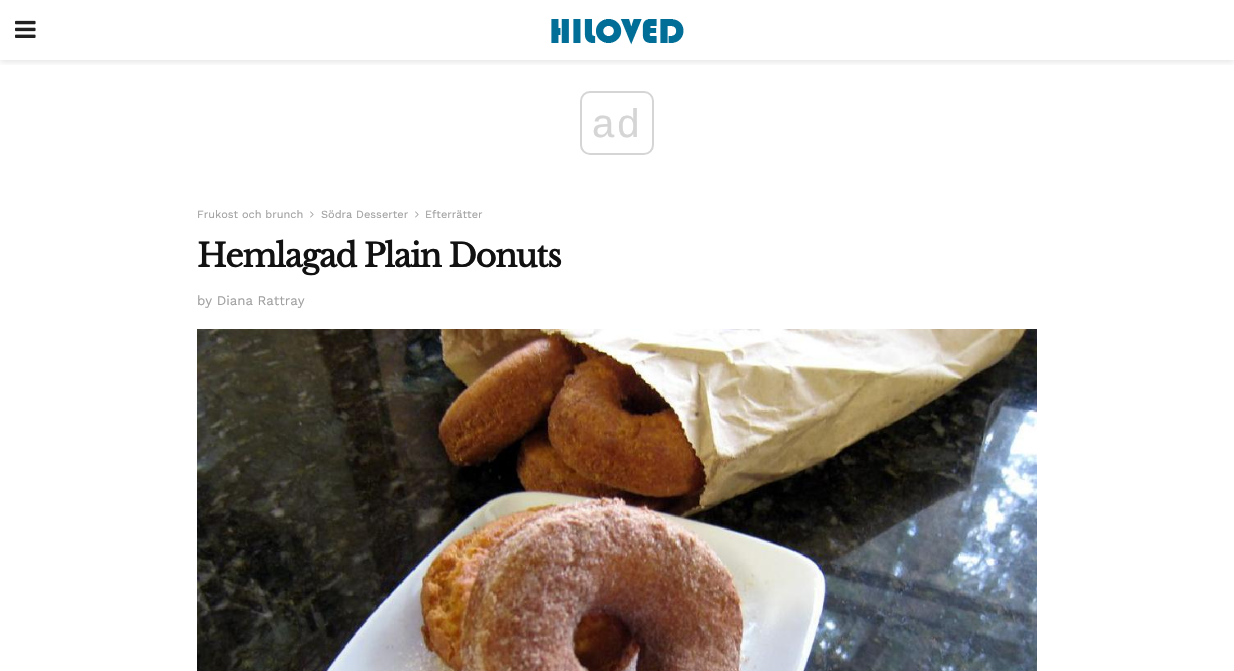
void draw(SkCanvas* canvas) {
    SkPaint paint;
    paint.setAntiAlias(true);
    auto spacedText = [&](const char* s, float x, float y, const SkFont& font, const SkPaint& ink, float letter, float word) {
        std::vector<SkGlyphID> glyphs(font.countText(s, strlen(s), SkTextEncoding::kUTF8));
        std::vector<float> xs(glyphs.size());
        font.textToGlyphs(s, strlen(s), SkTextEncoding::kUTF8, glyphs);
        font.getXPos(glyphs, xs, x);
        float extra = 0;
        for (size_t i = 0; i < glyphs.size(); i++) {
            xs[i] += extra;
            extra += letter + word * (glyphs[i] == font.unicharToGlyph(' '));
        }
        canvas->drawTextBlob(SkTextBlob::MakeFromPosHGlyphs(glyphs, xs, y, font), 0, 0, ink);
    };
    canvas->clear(0xFFFFFFFF);
    canvas->save();
    canvas->clipRect(SkRect::MakeXYWH(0, 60, 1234, 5));
    paint.setColor(0x1A000000);
    paint.setMaskFilter(SkMaskFilter::MakeBlur(kNormal_SkBlurStyle, 3));
    canvas->drawRect(SkRect::MakeXYWH(0, 2, 1234, 60), paint);
    paint.setMaskFilter(nullptr);
    canvas->restore();
    canvas->drawImageRect(SkImages::DeferredFromEncodedData(SkData::MakeFromFileName("img1.png")), SkRect::MakeXYWH(15, 20, 21, 18), SkSamplingOptions());
    canvas->drawImageRect(SkImages::DeferredFromEncodedData(SkData::MakeFromFileName("img2.png")), SkRect::MakeXYWH(551, 19, 133, 26), SkSamplingOptions());
    paint.setStyle(SkPaint::kStroke_Style);
    paint.setStrokeWidth(2);
    paint.setColor(0xFFD5D5D5);
    canvas->drawRoundRect(SkRect::MakeXYWH(581, 92, 72, 62), 9, 9, paint);
    SkFont font1(fontMgr->matchFamilyStyle("Liberation Sans", SkFontStyle::Normal()), 40);
    font1.setSubpixel(true);
    paint.setStyle(SkPaint::kFill_Style);
    spacedText("ad", 592, 137, font1, paint, 3, 0);
    SkFont font2(fontMgr->matchFamilyStyle("Work Sans", SkFontStyle::Normal()), 11);
    font2.setSubpixel(true);
    paint.setColor(0xFFA0A0A0);
    canvas->drawString("Frukost och brunch", 197, 218, font2, paint);
    canvas->drawImageRect(SkImages::DeferredFromEncodedData(SkData::MakeFromFileName("img3.png")), SkRect::MakeXYWH(310, 211, 4, 7), SkSamplingOptions());
    canvas->drawString("Södra Desserter", 321, 218, font2, paint);
    canvas->drawImageRect(SkImages::DeferredFromEncodedData(SkData::MakeFromFileName("img3.png")), SkRect::MakeXYWH(415, 211, 4, 7), SkSamplingOptions());
    canvas->drawString("Efterrätter", 425, 218, font2, paint);
    SkFont font3(fontMgr->matchFamilyStyle("Libre Baskerville", SkFontStyle::Bold()), 32);
    font3.setSubpixel(true);
    paint.setColor(0xFF111111);
    spacedText("Hemlagad Plain Donuts", 197, 267, font3, paint, -1.25f, 0);
    SkFont font4(fontMgr->matchFamilyStyle("Work Sans", SkFontStyle::Normal()), 13.25f);
    font4.setSubpixel(true);
    paint.setColor(0xFFA0A0A0);
    canvas->drawString("by Diana Rattray", 197, 305, font4, paint);
    canvas->drawImageRect(SkImages::DeferredFromEncodedData(SkData::MakeFromFileName("img4.png")), SkRect::MakeXYWH(197, 329, 840, 342), SkSamplingOptions());
}
